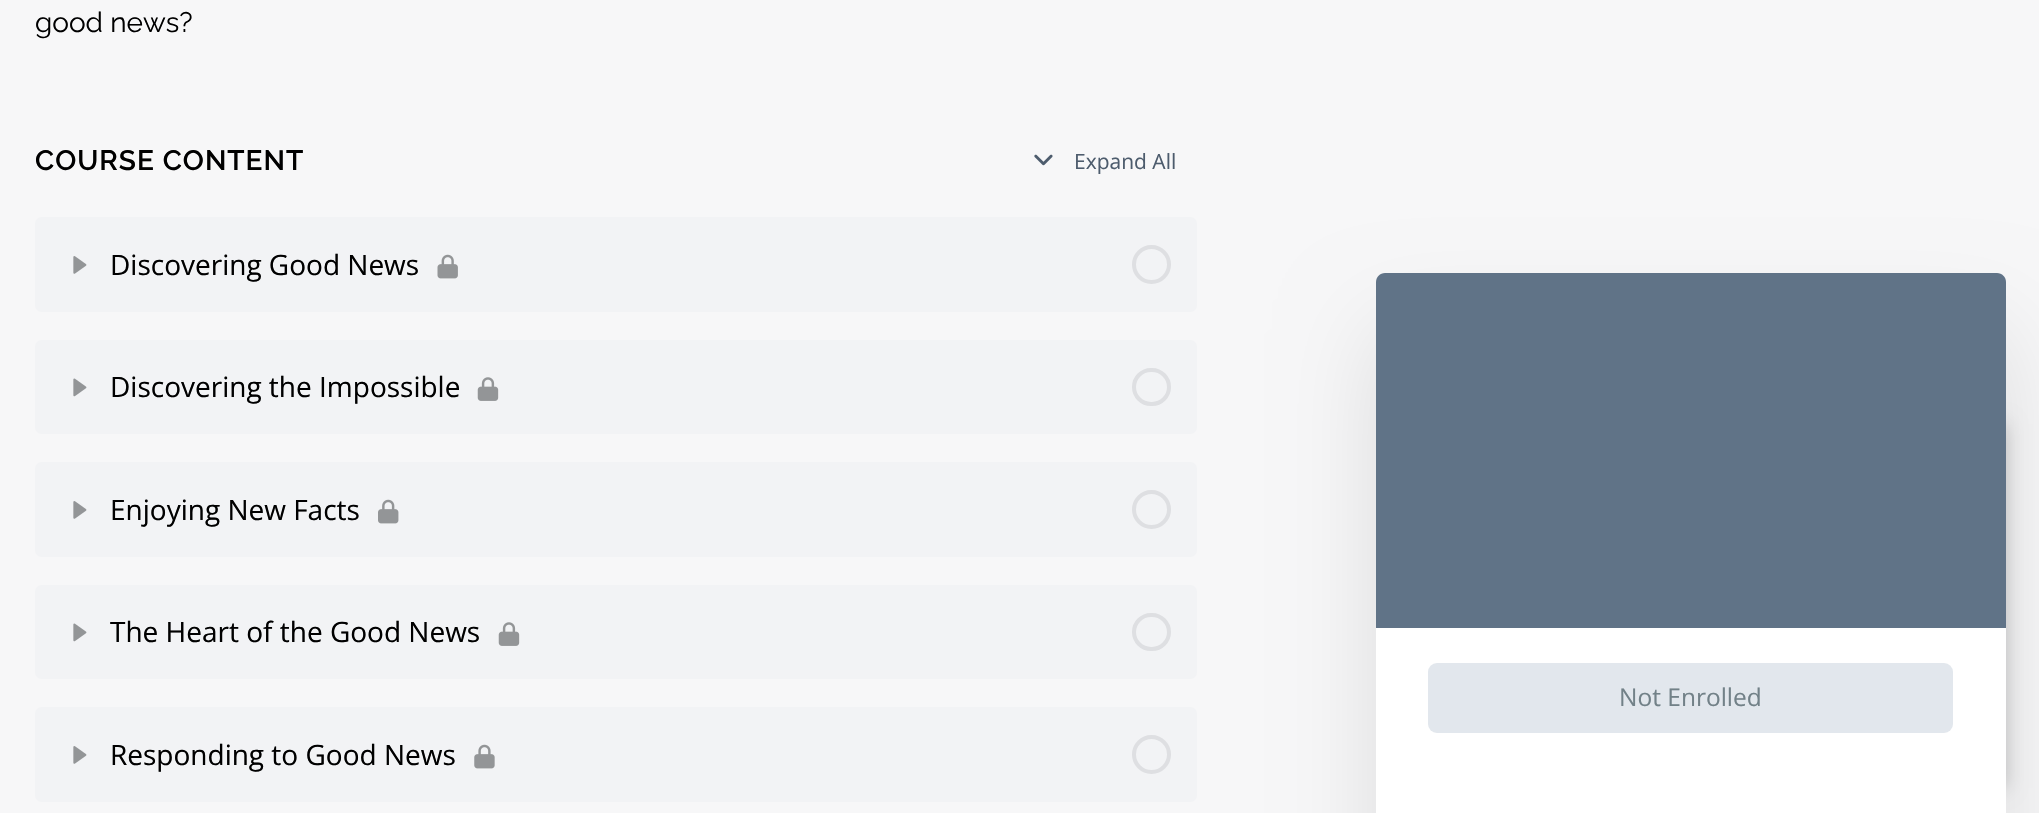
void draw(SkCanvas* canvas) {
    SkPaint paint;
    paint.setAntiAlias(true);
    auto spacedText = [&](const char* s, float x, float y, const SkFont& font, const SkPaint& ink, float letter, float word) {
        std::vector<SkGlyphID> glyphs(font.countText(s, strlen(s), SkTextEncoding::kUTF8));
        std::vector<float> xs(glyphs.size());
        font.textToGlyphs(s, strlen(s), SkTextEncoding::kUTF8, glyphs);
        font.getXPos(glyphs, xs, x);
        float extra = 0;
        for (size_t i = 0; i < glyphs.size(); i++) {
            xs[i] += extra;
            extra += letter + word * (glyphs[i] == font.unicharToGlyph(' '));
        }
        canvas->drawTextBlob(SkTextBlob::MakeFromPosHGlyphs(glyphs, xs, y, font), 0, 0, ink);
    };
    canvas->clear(0xFFF7F7F8);
    SkFont font1(fontMgr->matchFamilyStyle("Raleway", SkFontStyle::Normal()), 28);
    font1.setSubpixel(true);
    paint.setColor(0xFF000000);
    canvas->drawString("good news?", 35, 32, font1, paint);
    SkFont font2(fontMgr->matchFamilyStyle("Raleway", SkFontStyle(600, SkFontStyle::kNormal_Width, SkFontStyle::kUpright_Slant)), 28);
    font2.setSubpixel(true);
    spacedText("COURSE CONTENT", 35, 170, font2, paint, 1, 0);
    canvas->drawImageRect(SkImages::DeferredFromEncodedData(SkData::MakeFromFileName("img1.png")), SkRect::MakeXYWH(1034, 154, 19, 12), SkSamplingOptions());
    SkFont font3(fontMgr->matchFamilyStyle("Open Sans", SkFontStyle::Normal()), 21);
    font3.setSubpixel(true);
    paint.setColor(0xFF4D5C6D);
    canvas->drawString("Expand All", 1074, 169, font3, paint);
    paint.setColor(0xFFF2F3F5);
    canvas->drawRoundRect(SkRect::MakeXYWH(35, 217, 1162, 95), 7, 7, paint);
    canvas->drawImageRect(SkImages::DeferredFromEncodedData(SkData::MakeFromFileName("img2.png")), SkRect::MakeXYWH(73, 256, 14, 18), SkSamplingOptions());
    SkFont font4(fontMgr->matchFamilyStyle("Open Sans", SkFontStyle::Normal()), 28);
    font4.setSubpixel(true);
    paint.setColor(0xFF000000);
    canvas->drawString("Discovering Good News", 110, 275, font4, paint);
    canvas->drawImageRect(SkImages::DeferredFromEncodedData(SkData::MakeFromFileName("img3.png")), SkRect::MakeXYWH(437, 254, 21, 25), SkSamplingOptions());
    paint.setStyle(SkPaint::kStroke_Style);
    paint.setStrokeWidth(4);
    paint.setColor(0xFFDEDFE2);
    canvas->drawCircle(1151.5f, 264.5f, 17.5f, paint);
    paint.setStyle(SkPaint::kFill_Style);
    paint.setColor(0xFFF2F3F5);
    canvas->drawRoundRect(SkRect::MakeXYWH(35, 340, 1162, 94), 7, 7, paint);
    canvas->drawImageRect(SkImages::DeferredFromEncodedData(SkData::MakeFromFileName("img4.png")), SkRect::MakeXYWH(73, 378, 14, 19), SkSamplingOptions());
    paint.setColor(0xFF000000);
    canvas->drawString("Discovering the Impossible", 110, 397, font4, paint);
    canvas->drawImageRect(SkImages::DeferredFromEncodedData(SkData::MakeFromFileName("img5.png")), SkRect::MakeXYWH(477, 377, 22, 24), SkSamplingOptions());
    paint.setStyle(SkPaint::kStroke_Style);
    paint.setColor(0xFFDEDFE2);
    canvas->drawRoundRect(SkRect::MakeXYWH(1134, 370, 35, 34), 17, 17, paint);
    paint.setStyle(SkPaint::kFill_Style);
    paint.setColor(0xFFF2F3F5);
    canvas->drawRoundRect(SkRect::MakeXYWH(35, 462, 1162, 95), 7, 7, paint);
    canvas->drawImageRect(SkImages::DeferredFromEncodedData(SkData::MakeFromFileName("img2.png")), SkRect::MakeXYWH(73, 501, 14, 18), SkSamplingOptions());
    paint.setColor(0xFF000000);
    canvas->drawString("Enjoying New Facts", 110, 520, font4, paint);
    canvas->drawImageRect(SkImages::DeferredFromEncodedData(SkData::MakeFromFileName("img6.png")), SkRect::MakeXYWH(378, 499, 21, 25), SkSamplingOptions());
    paint.setStyle(SkPaint::kStroke_Style);
    paint.setColor(0xFFDEDFE2);
    canvas->drawCircle(1151.5f, 509.5f, 17.5f, paint);
    paint.setStyle(SkPaint::kFill_Style);
    paint.setColor(0xFFF2F3F5);
    canvas->drawRoundRect(SkRect::MakeXYWH(35, 585, 1162, 94), 7, 7, paint);
    canvas->drawImageRect(SkImages::DeferredFromEncodedData(SkData::MakeFromFileName("img4.png")), SkRect::MakeXYWH(73, 623, 14, 19), SkSamplingOptions());
    paint.setColor(0xFF000000);
    canvas->drawString("The Heart of the Good News", 110, 642, font4, paint);
    canvas->drawImageRect(SkImages::DeferredFromEncodedData(SkData::MakeFromFileName("img5.png")), SkRect::MakeXYWH(498, 622, 22, 24), SkSamplingOptions());
    paint.setStyle(SkPaint::kStroke_Style);
    paint.setColor(0xFFDEDFE2);
    canvas->drawRoundRect(SkRect::MakeXYWH(1134, 615, 35, 34), 17, 17, paint);
    paint.setStyle(SkPaint::kFill_Style);
    paint.setColor(0xFFF2F3F5);
    canvas->drawRoundRect(SkRect::MakeXYWH(35, 707, 1162, 95), 7, 7, paint);
    canvas->drawImageRect(SkImages::DeferredFromEncodedData(SkData::MakeFromFileName("img2.png")), SkRect::MakeXYWH(73, 746, 14, 18), SkSamplingOptions());
    paint.setColor(0xFF000000);
    canvas->drawString("Responding to Good News", 110, 765, font4, paint);
    canvas->drawImageRect(SkImages::DeferredFromEncodedData(SkData::MakeFromFileName("img7.png")), SkRect::MakeXYWH(474, 744, 21, 25), SkSamplingOptions());
    paint.setStyle(SkPaint::kStroke_Style);
    paint.setColor(0xFFDEDFE2);
    canvas->drawCircle(1151.5f, 754.5f, 17.5f, paint);
    paint.setStyle(SkPaint::kFill_Style);
    paint.setColor(0x1A000000);
    paint.setMaskFilter(SkMaskFilter::MakeBlur(kNormal_SkBlurStyle, 47));
    canvas->drawRoundRect(SkRect::MakeXYWH(1376, 329, 630, 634), 9, 9, paint);
    paint.setMaskFilter(nullptr);
    paint.setColor(0x33000000);
    paint.setMaskFilter(SkMaskFilter::MakeBlur(kNormal_SkBlurStyle, 9));
    canvas->drawRect(SkRect::MakeXYWH(1446, 424, 560, 364), paint);
    paint.setMaskFilter(nullptr);
    paint.setColor(0xFF607387);
    canvas->drawPath(SkPathBuilder().moveTo(1385, 273).lineTo(1997, 273).cubicTo(2002, 273, 2006, 277, 2006, 282).lineTo(2006, 628).lineTo(1376, 628).lineTo(1376, 282).cubicTo(1376, 277, 1380, 273, 1385, 273).close().detach(), paint);
    paint.setColor(0xFFFFFFFF);
    canvas->drawRect(SkRect::MakeXYWH(1376, 628, 630, 185), paint);
    paint.setColor(0xFFE2E7ED);
    canvas->drawRoundRect(SkRect::MakeXYWH(1428, 663, 525, 70), 9, 9, paint);
    SkFont font5(fontMgr->matchFamilyStyle("Open Sans", SkFontStyle::Normal()), 24.5f);
    font5.setSubpixel(true);
    paint.setColor(0xFF728188);
    canvas->drawString("Not Enrolled", 1619, 706, font5, paint);
}
